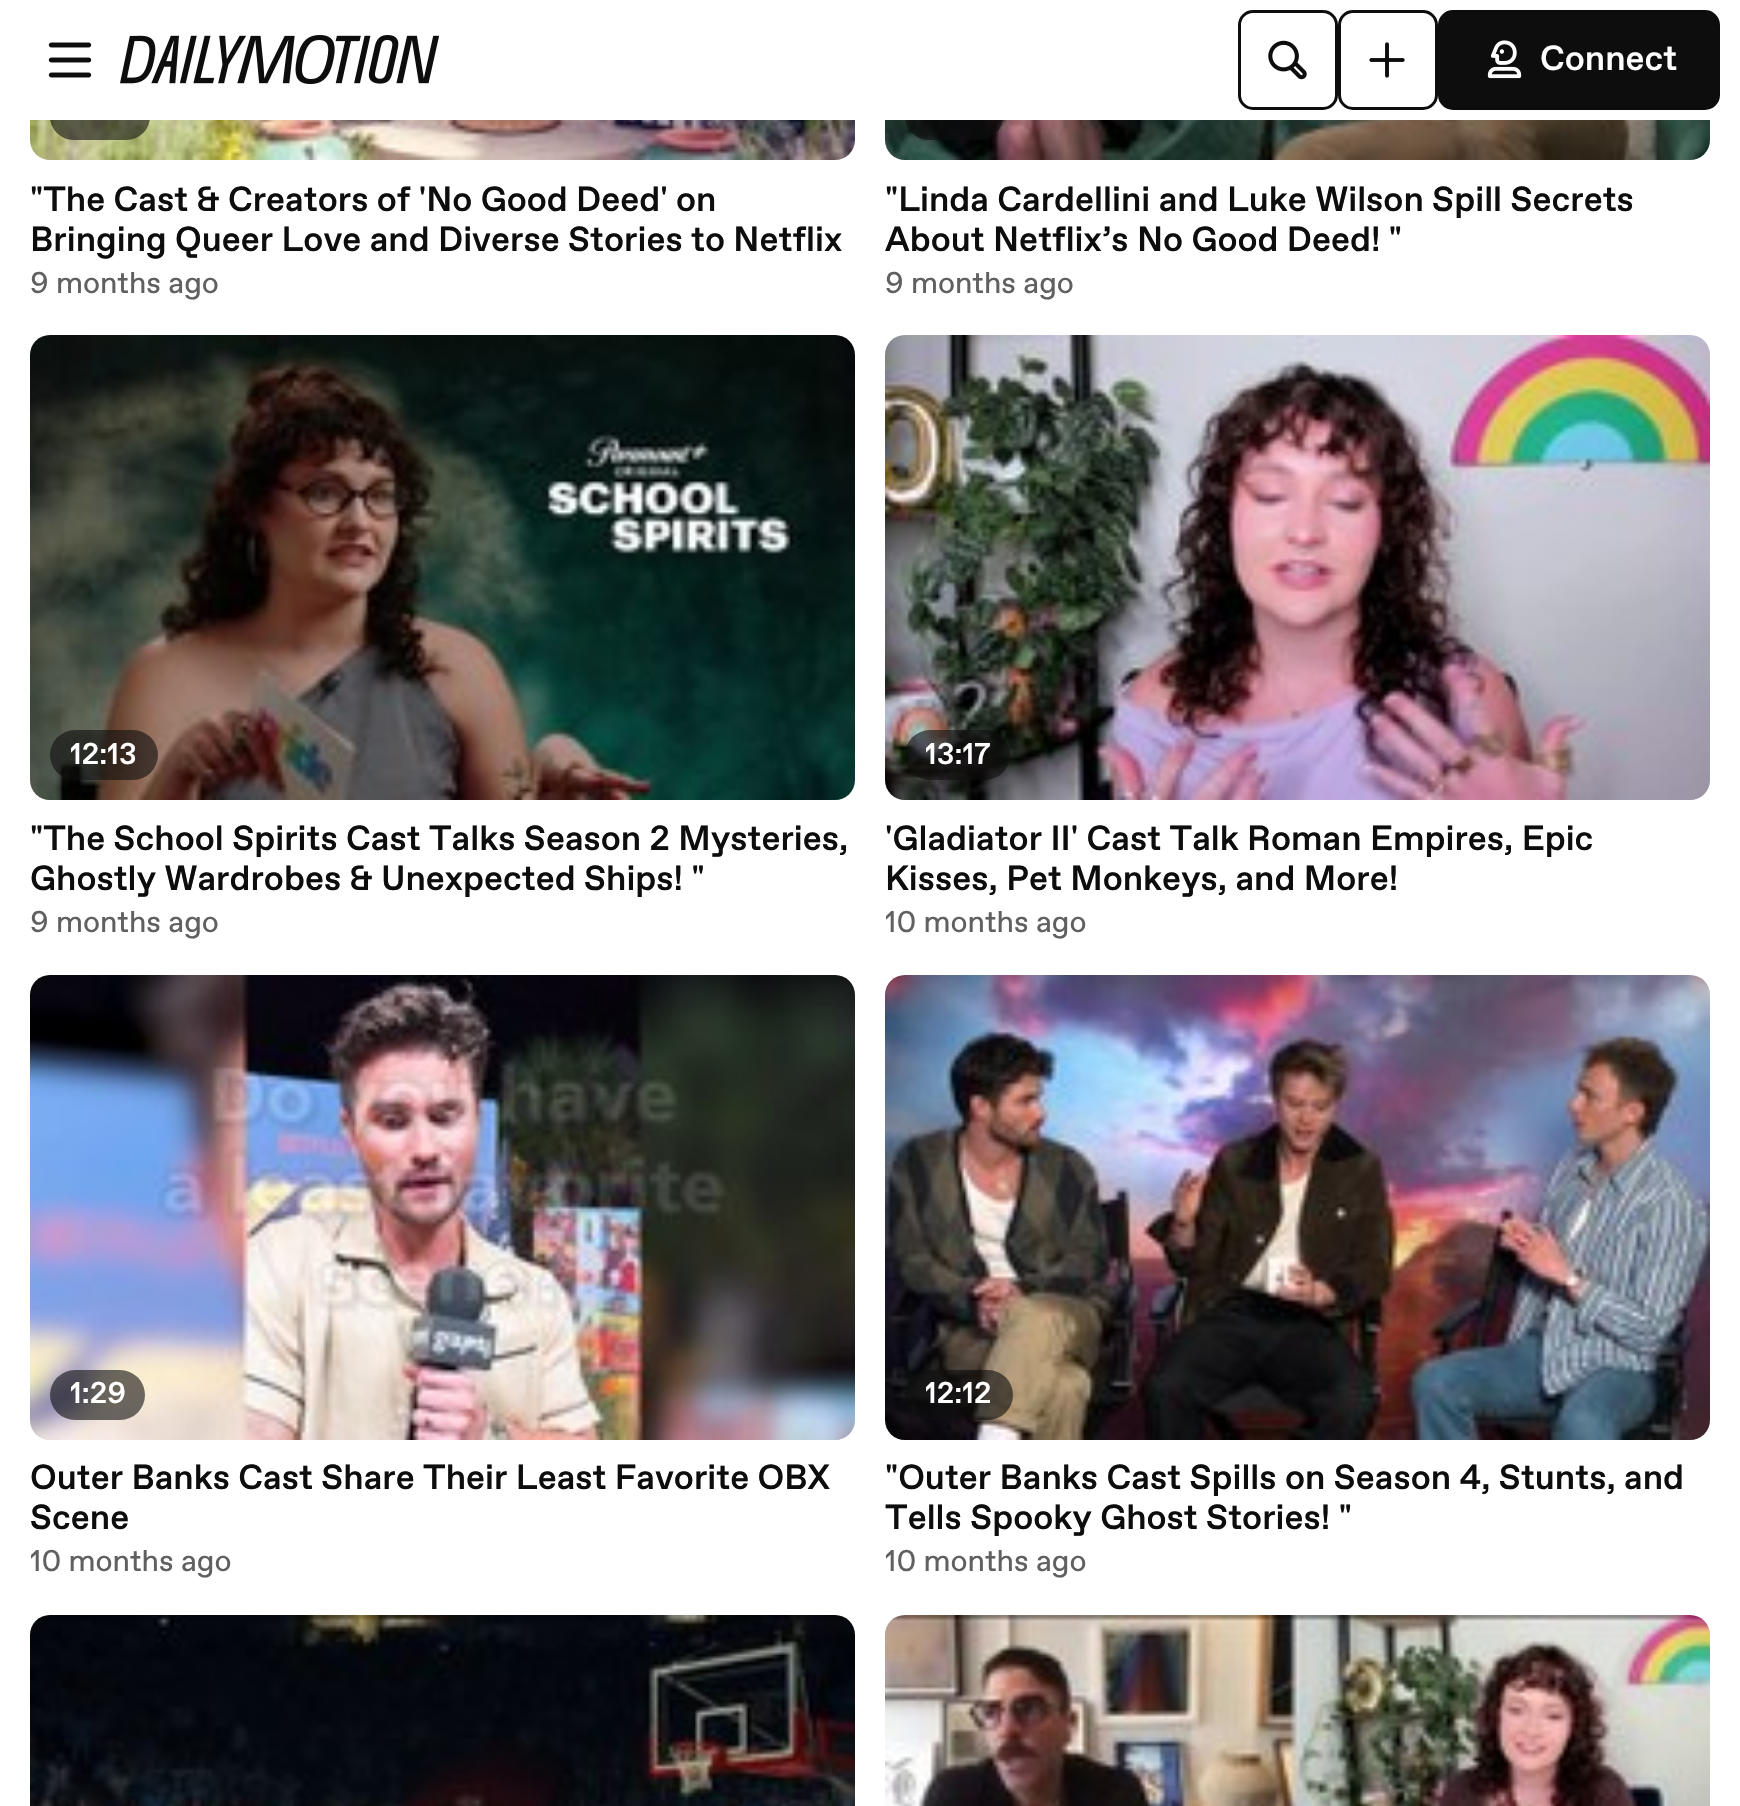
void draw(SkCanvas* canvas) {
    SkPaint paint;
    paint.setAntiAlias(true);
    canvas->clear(0xFFFFFFFF);
    canvas->drawImageRect(SkImages::DeferredFromEncodedData(SkData::MakeFromFileName("img6.png")), SkRect::MakeXYWH(30, 120, 825, 40), SkSamplingOptions());
    paint.setColor(0x990D0D0D);
    canvas->drawRoundRect(SkRect::MakeXYWH(50, 93, 100, 47), 23.5f, 23.5f, paint);
    canvas->drawImageRect(SkImages::DeferredFromEncodedData(SkData::MakeFromFileName("img7.png")), SkRect::MakeXYWH(885, 120, 825, 40), SkSamplingOptions());
    canvas->drawRoundRect(SkRect::MakeXYWH(905, 93, 98, 47), 23.5f, 23.5f, paint);
    paint.setColor(0xFFFFFFFF);
    canvas->drawRect(SkRect::MakeXYWH(50, 93, 953, 27), paint);
    canvas->drawImageRect(SkImages::DeferredFromEncodedData(SkData::MakeFromFileName("img1.png")), SkRect::MakeXYWH(48, 42, 44, 36), SkSamplingOptions());
    canvas->drawImageRect(SkImages::DeferredFromEncodedData(SkData::MakeFromFileName("img2.png")), SkRect::MakeXYWH(120, 35, 319, 49), SkSamplingOptions());
    paint.setStyle(SkPaint::kStroke_Style);
    paint.setStrokeWidth(3);
    paint.setColor(0xFF0D0D0D);
    canvas->drawRoundRect(SkRect::MakeXYWH(1239.5f, 11.5f, 97, 97), 13.5f, 13.5f, paint);
    canvas->drawImageRect(SkImages::DeferredFromEncodedData(SkData::MakeFromFileName("img3.png")), SkRect::MakeXYWH(1268, 40, 39, 40), SkSamplingOptions());
    canvas->drawRoundRect(SkRect::MakeXYWH(1339.5f, 11.5f, 97, 97), 13.5f, 13.5f, paint);
    canvas->drawImageRect(SkImages::DeferredFromEncodedData(SkData::MakeFromFileName("img4.png")), SkRect::MakeXYWH(1369, 42, 36, 36), SkSamplingOptions());
    paint.setStyle(SkPaint::kFill_Style);
    canvas->drawRoundRect(SkRect::MakeXYWH(1439.5f, 11.5f, 279, 97), 13.5f, 13.5f, paint);
    paint.setStyle(SkPaint::kStroke_Style);
    canvas->drawRoundRect(SkRect::MakeXYWH(1439.5f, 11.5f, 279, 97), 13.5f, 13.5f, paint);
    canvas->drawImageRect(SkImages::DeferredFromEncodedData(SkData::MakeFromFileName("img5.png")), SkRect::MakeXYWH(1487, 40, 35, 39), SkSamplingOptions());
    SkFont font1(fontMgr->matchFamilyStyle("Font", SkFontStyle(500, SkFontStyle::kNormal_Width, SkFontStyle::kUpright_Slant)), 35);
    font1.setSubpixel(true);
    paint.setStyle(SkPaint::kFill_Style);
    paint.setColor(0xFFFFFFFF);
    canvas->drawString("Connect", 1540, 70, font1, paint);
    paint.setColor(0xFF0D0D0D);
    canvas->drawString("\"The Cast & Creators of 'No Good Deed' on", 30, 211, font1, paint);
    canvas->drawString("Bringing Queer Love and Diverse Stories to Netflix", 30, 251, font1, paint);
    SkFont font2(fontMgr->matchFamilyStyle("Font", SkFontStyle::Normal()), 30);
    font2.setSubpixel(true);
    paint.setColor(0xFF606060);
    canvas->drawString("9 months ago", 30, 293, font2, paint);
    paint.setColor(0xFF0D0D0D);
    canvas->drawString("\"Linda Cardellini and Luke Wilson Spill Secrets", 885, 211, font1, paint);
    canvas->drawString("About Netflix’s No Good Deed! \"", 885, 251, font1, paint);
    paint.setColor(0xFF606060);
    canvas->drawString("9 months ago", 885, 293, font2, paint);
    paint.setColor(0xFFE8E8E8);
    canvas->drawRoundRect(SkRect::MakeXYWH(30, 335, 825, 465), 20, 20, paint);
    canvas->drawImageRect(SkImages::DeferredFromEncodedData(SkData::MakeFromFileName("img8.png")), SkRect::MakeXYWH(30, 335, 825, 465), SkSamplingOptions());
    paint.setColor(0x990D0D0D);
    canvas->drawRoundRect(SkRect::MakeXYWH(50, 730, 108, 50), 25, 25, paint);
    SkFont font3(fontMgr->matchFamilyStyle("Font", SkFontStyle(500, SkFontStyle::kNormal_Width, SkFontStyle::kUpright_Slant)), 30);
    font3.setSubpixel(true);
    paint.setColor(0xFFFFFFFF);
    canvas->drawString("12:13", 70, 764, font3, paint);
    paint.setColor(0xFF0D0D0D);
    canvas->drawString("\"The School Spirits Cast Talks Season 2 Mysteries,", 30, 850, font1, paint);
    canvas->drawString("Ghostly Wardrobes & Unexpected Ships! \"", 30, 890, font1, paint);
    paint.setColor(0xFF606060);
    canvas->drawString("9 months ago", 30, 932, font2, paint);
    paint.setColor(0xFFE8E8E8);
    canvas->drawRoundRect(SkRect::MakeXYWH(885, 335, 825, 465), 20, 20, paint);
    canvas->drawImageRect(SkImages::DeferredFromEncodedData(SkData::MakeFromFileName("img9.png")), SkRect::MakeXYWH(885, 335, 825, 465), SkSamplingOptions());
    paint.setColor(0x990D0D0D);
    canvas->drawRoundRect(SkRect::MakeXYWH(905, 730, 105, 50), 25, 25, paint);
    paint.setColor(0xFFFFFFFF);
    canvas->drawString("13:17", 925, 764, font3, paint);
    paint.setColor(0xFF0D0D0D);
    canvas->drawString("'Gladiator II' Cast Talk Roman Empires, Epic", 885, 850, font1, paint);
    canvas->drawString("Kisses, Pet Monkeys, and More!", 885, 890, font1, paint);
    paint.setColor(0xFF606060);
    canvas->drawString("10 months ago", 885, 932, font2, paint);
    paint.setColor(0xFFE8E8E8);
    canvas->drawRoundRect(SkRect::MakeXYWH(30, 975, 825, 465), 20, 20, paint);
    canvas->drawImageRect(SkImages::DeferredFromEncodedData(SkData::MakeFromFileName("img10.png")), SkRect::MakeXYWH(30, 975, 825, 465), SkSamplingOptions());
    paint.setColor(0x990D0D0D);
    canvas->drawRoundRect(SkRect::MakeXYWH(50, 1370, 95, 50), 25, 25, paint);
    paint.setColor(0xFFFFFFFF);
    canvas->drawString("1:29", 70, 1403, font3, paint);
    paint.setColor(0xFF0D0D0D);
    canvas->drawString("Outer Banks Cast Share Their Least Favorite OBX", 30, 1489, font1, paint);
    canvas->drawString("Scene", 30, 1529, font1, paint);
    paint.setColor(0xFF606060);
    canvas->drawString("10 months ago", 30, 1571, font2, paint);
    paint.setColor(0xFFE8E8E8);
    canvas->drawRoundRect(SkRect::MakeXYWH(885, 975, 825, 465), 20, 20, paint);
    canvas->drawImageRect(SkImages::DeferredFromEncodedData(SkData::MakeFromFileName("img11.png")), SkRect::MakeXYWH(885, 975, 825, 465), SkSamplingOptions());
    paint.setColor(0x990D0D0D);
    canvas->drawRoundRect(SkRect::MakeXYWH(905, 1370, 108, 50), 25, 25, paint);
    paint.setColor(0xFFFFFFFF);
    canvas->drawString("12:12", 925, 1403, font3, paint);
    paint.setColor(0xFF0D0D0D);
    canvas->drawString("\"Outer Banks Cast Spills on Season 4, Stunts, and", 885, 1489, font1, paint);
    canvas->drawString("Tells Spooky Ghost Stories! \"", 885, 1529, font1, paint);
    paint.setColor(0xFF606060);
    canvas->drawString("10 months ago", 885, 1571, font2, paint);
    paint.setColor(0xFFE8E8E8);
    canvas->drawRoundRect(SkRect::MakeXYWH(30, 1615, 825, 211), 20, 20, paint);
    canvas->drawImageRect(SkImages::DeferredFromEncodedData(SkData::MakeFromFileName("img12.png")), SkRect::MakeXYWH(30, 1615, 825, 191), SkSamplingOptions());
    canvas->drawRoundRect(SkRect::MakeXYWH(885, 1615, 825, 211), 20, 20, paint);
    canvas->drawImageRect(SkImages::DeferredFromEncodedData(SkData::MakeFromFileName("img13.png")), SkRect::MakeXYWH(885, 1615, 825, 191), SkSamplingOptions());
}
